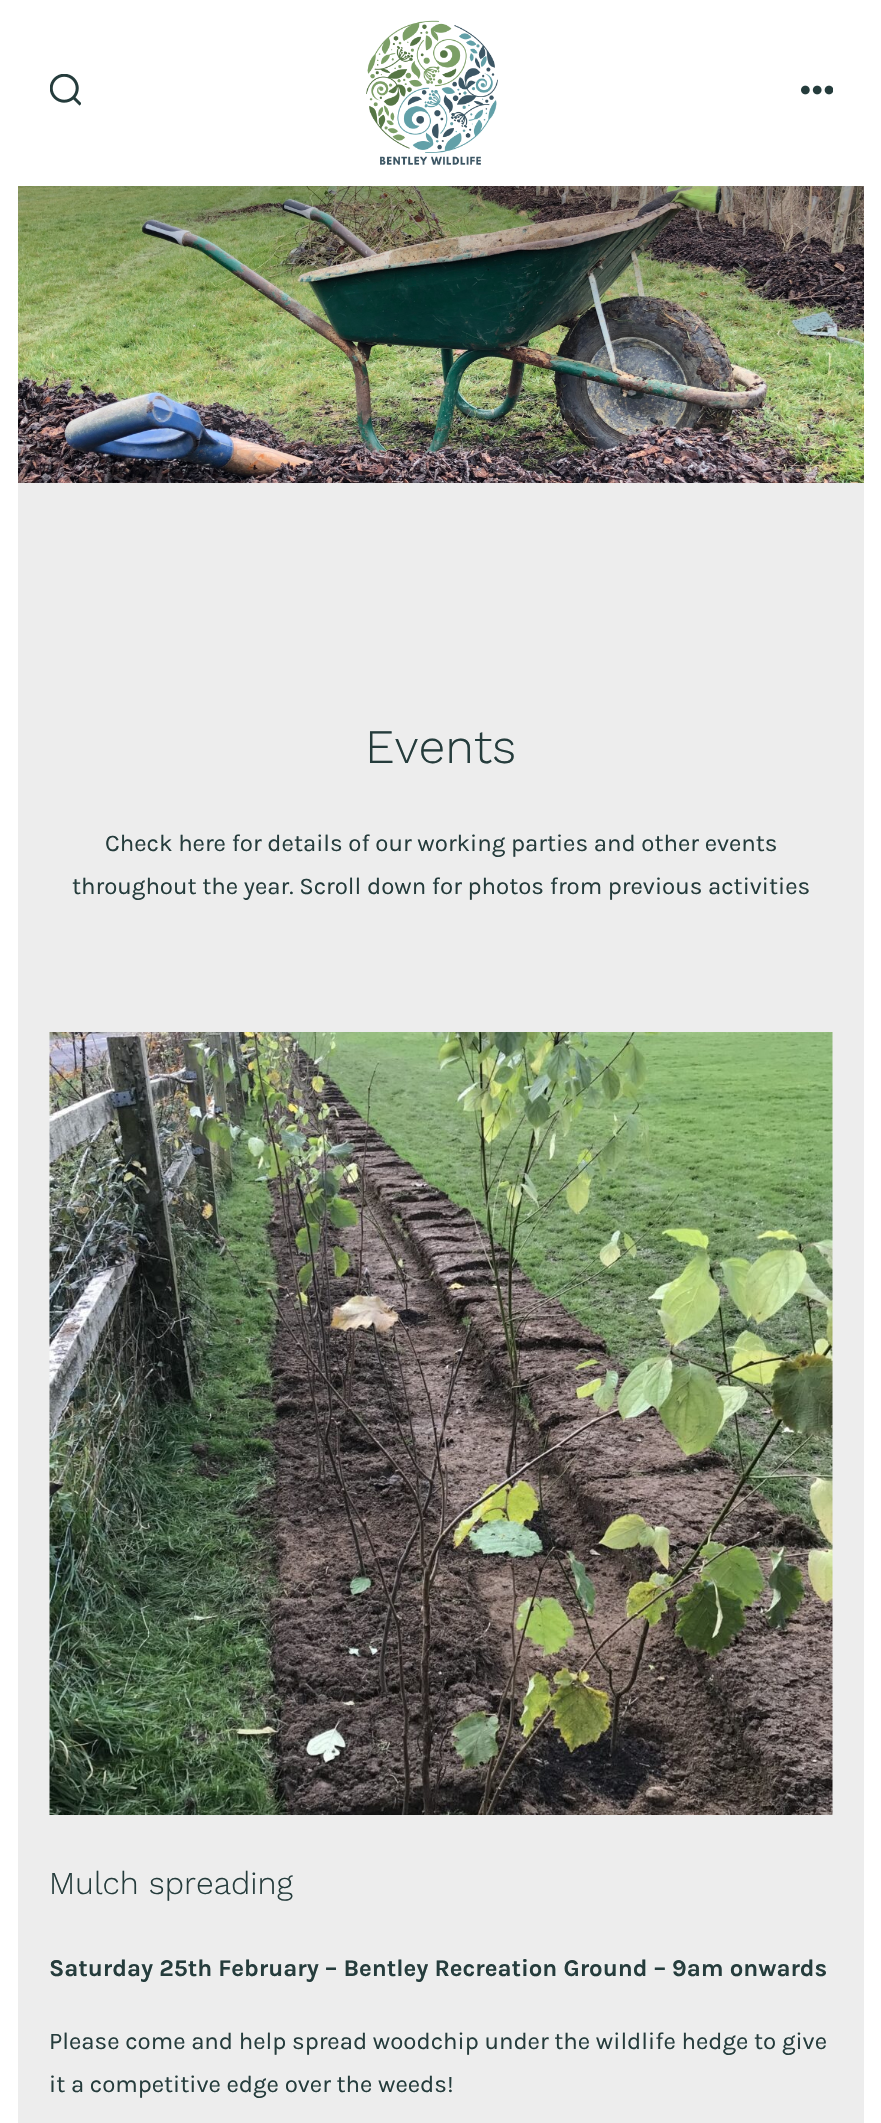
void draw(SkCanvas* canvas) {
    SkPaint paint;
    paint.setAntiAlias(true);
    canvas->clear(0xFFEDEDED);
    paint.setColor(0xFFFFFFFF);
    canvas->drawRect(SkRect::MakeXYWH(864, 0, 17, 2123), paint);
    canvas->drawRect(SkRect::MakeXYWH(0, 0, 18, 2123), paint);
    canvas->drawRect(SkRect::MakeXYWH(18, 0, 846, 186), paint);
    canvas->drawImageRect(SkImages::DeferredFromEncodedData(SkData::MakeFromFileName("img1.png")), SkRect::MakeXYWH(50, 74, 31, 32), SkSamplingOptions());
    canvas->drawImageRect(SkImages::DeferredFromEncodedData(SkData::MakeFromFileName("img2.png")), SkRect::MakeXYWH(366, 20, 132, 145), SkSamplingOptions());
    canvas->drawImageRect(SkImages::DeferredFromEncodedData(SkData::MakeFromFileName("img3.png")), SkRect::MakeXYWH(801, 85, 32, 10), SkSamplingOptions());
    canvas->drawImageRect(SkImages::DeferredFromEncodedData(SkData::MakeFromFileName("img4.png")), SkRect::MakeXYWH(18, 186, 846, 297), SkSamplingOptions());
    {
        const SkColor colors[] = {0x33000000, 0x00000000};
        const float stops[] = {0, 0.4f};
        const SkPoint ends[] = {{441, 186}, {441, 630}};
        paint.setShader(SkGradientShader::MakeLinear(ends, colors, stops, 2, SkTileMode::kClamp));
        paint.setAlpha(255);
    }
    canvas->drawRect(SkRect::MakeXYWH(18, 186, 846, 158), paint);
    SkFont font1(fontMgr->matchFamilyStyle("Work Sans", SkFontStyle(300, SkFontStyle::kNormal_Width, SkFontStyle::kUpright_Slant)), 48);
    font1.setSubpixel(true);
    paint.setShader(nullptr);
    paint.setColor(0xFF253C3C);
    canvas->drawString("Events", 365, 763, font1, paint);
    SkFont font2(fontMgr->matchFamilyStyle("Karla", SkFontStyle::Normal()), 24);
    font2.setSubpixel(true);
    canvas->drawString("Check here for details of our working parties and other events", 105, 851, font2, paint);
    canvas->drawString("throughout the year. Scroll down for photos from previous activities", 72, 894, font2, paint);
    canvas->drawImageRect(SkImages::DeferredFromEncodedData(SkData::MakeFromFileName("img5.png")), SkRect::MakeXYWH(49, 1032, 784, 783), SkSamplingOptions());
    SkFont font3(fontMgr->matchFamilyStyle("Work Sans", SkFontStyle(300, SkFontStyle::kNormal_Width, SkFontStyle::kUpright_Slant)), 31.75f);
    font3.setSubpixel(true);
    canvas->drawString("Mulch spreading", 49, 1894, font3, paint);
    SkFont font4(fontMgr->matchFamilyStyle("Karla", SkFontStyle::Bold()), 24);
    font4.setSubpixel(true);
    canvas->drawString("Saturday 25th February – Bentley Recreation Ground – 9am onwards", 49, 1976, font4, paint);
    canvas->drawString("Please come and help spread woodchip under the wildlife hedge to give", 49, 2049, font2, paint);
    canvas->drawString("it a competitive edge over the weeds!", 49, 2092, font2, paint);
}
